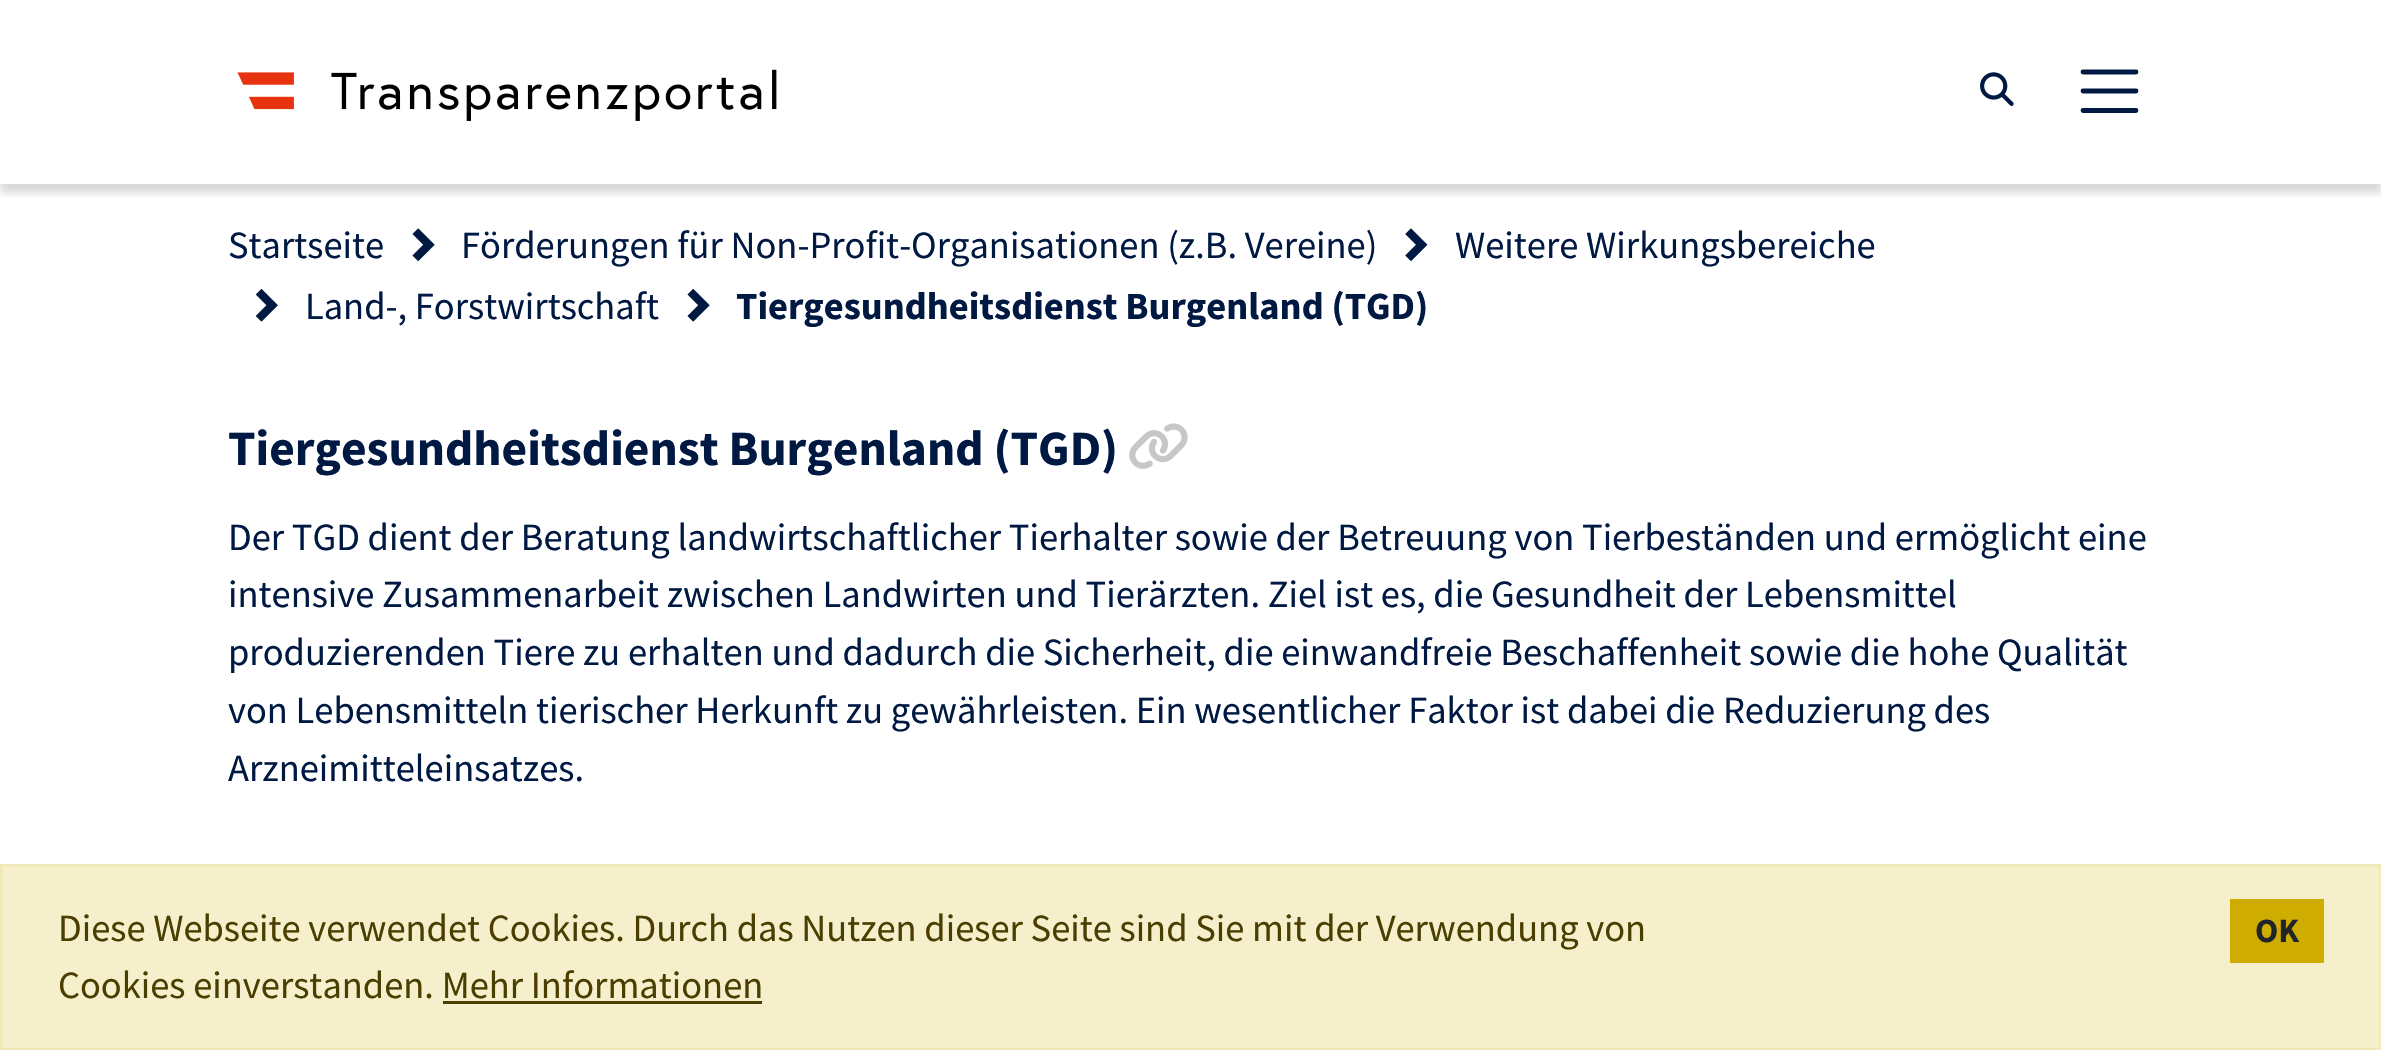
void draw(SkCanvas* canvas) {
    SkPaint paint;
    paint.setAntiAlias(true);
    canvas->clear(0xFFFFFFFF);
    canvas->save();
    canvas->clipRect(SkRect::MakeXYWH(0, 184, 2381, 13));
    paint.setColor(0x26000000);
    paint.setMaskFilter(SkMaskFilter::MakeBlur(kNormal_SkBlurStyle, 4));
    canvas->drawRect(SkRect::MakeXYWH(0, 8, 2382, 185), paint);
    paint.setMaskFilter(nullptr);
    canvas->restore();
    canvas->drawImageRect(SkImages::DeferredFromEncodedData(SkData::MakeFromFileName("img1.png")), SkRect::MakeXYWH(237, 69, 540, 52), SkSamplingOptions());
    canvas->drawImageRect(SkImages::DeferredFromEncodedData(SkData::MakeFromFileName("img2.png")), SkRect::MakeXYWH(1980, 72, 34, 34), SkSamplingOptions());
    paint.setStyle(SkPaint::kStroke_Style);
    paint.setStrokeWidth(4.8f);
    paint.setStrokeCap(SkPaint::kRound_Cap);
    paint.setColor(0xFF001943);
    canvas->drawPath(SkPathBuilder().moveTo(2083, 72).lineTo(2136, 72).moveTo(2083, 91).lineTo(2136, 91).moveTo(2083, 110.5f).lineTo(2136, 110.5f).detach(), paint);
    SkFont font1(fontMgr->matchFamilyStyle("Source Sans Pro", SkFontStyle::Normal()), 38.5f);
    font1.setSubpixel(true);
    paint.setStyle(SkPaint::kFill_Style);
    canvas->drawString("Startseite", 228, 258, font1, paint);
    canvas->drawImageRect(SkImages::DeferredFromEncodedData(SkData::MakeFromFileName("img3.png")), SkRect::MakeXYWH(412, 228, 23, 33), SkSamplingOptions());
    canvas->drawString("Förderungen für Non-Profit-Organisationen (z.B. Vereine)", 461, 258, font1, paint);
    canvas->drawImageRect(SkImages::DeferredFromEncodedData(SkData::MakeFromFileName("img4.png")), SkRect::MakeXYWH(1405, 228, 23, 33), SkSamplingOptions());
    canvas->drawString("Weitere Wirkungsbereiche", 1455, 258, font1, paint);
    canvas->drawImageRect(SkImages::DeferredFromEncodedData(SkData::MakeFromFileName("img5.png")), SkRect::MakeXYWH(255, 289, 23, 33), SkSamplingOptions());
    canvas->drawString("Land-, Forstwirtschaft", 305, 319, font1, paint);
    canvas->drawImageRect(SkImages::DeferredFromEncodedData(SkData::MakeFromFileName("img6.png")), SkRect::MakeXYWH(687, 289, 23, 33), SkSamplingOptions());
    SkFont font2(fontMgr->matchFamilyStyle("Source Sans Pro", SkFontStyle::Bold()), 38.5f);
    font2.setSubpixel(true);
    canvas->drawString("Tiergesundheitsdienst Burgenland (TGD)", 736, 319, font2, paint);
    SkFont font3(fontMgr->matchFamilyStyle("Source Sans Pro", SkFontStyle::Bold()), 49.5f);
    font3.setSubpixel(true);
    canvas->drawString("Tiergesundheitsdienst Burgenland (TGD)", 228, 465, font3, paint);
    canvas->drawImageRect(SkImages::DeferredFromEncodedData(SkData::MakeFromFileName("img7.png")), SkRect::MakeXYWH(1129, 423, 59, 46), SkSamplingOptions());
    canvas->drawString("Der TGD dient der Beratung landwirtschaftlicher Tierhalter sowie der Betreuung von Tierbeständen und ermöglicht eine", 228, 550, font1, paint);
    canvas->drawString("intensive Zusammenarbeit zwischen Landwirten und Tierärzten. Ziel ist es, die Gesundheit der Lebensmittel", 228, 607, font1, paint);
    canvas->drawString("produzierenden Tiere zu erhalten und dadurch die Sicherheit, die einwandfreie Beschaffenheit sowie die hohe Qualität", 228, 665, font1, paint);
    canvas->drawString("von Lebensmitteln tierischer Herkunft zu gewährleisten. Ein wesentlicher Faktor ist dabei die Reduzierung des", 228, 723, font1, paint);
    canvas->drawString("Arzneimitteleinsatzes.", 228, 781, font1, paint);
    paint.setColor(0xFFF5EFCC);
    canvas->drawRect(SkRect::MakeXYWH(1.5f, 865.5f, 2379, 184), paint);
    paint.setStyle(SkPaint::kStroke_Style);
    paint.setStrokeWidth(3);
    paint.setStrokeCap(SkPaint::kButt_Cap);
    paint.setColor(0xFFF1E8B8);
    canvas->drawRect(SkRect::MakeXYWH(1.5f, 865.5f, 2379, 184), paint);
    paint.setStyle(SkPaint::kFill_Style);
    paint.setColor(0xFF4A3E00);
    canvas->drawString("Diese Webseite verwendet Cookies. Durch das Nutzen dieser Seite sind Sie mit der Verwendung von", 58, 941, font1, paint);
    canvas->drawString("Cookies einverstanden. Mehr Informationen", 58, 998, font1, paint);
    canvas->drawRect(SkRect::MakeXYWH(443, 1001, 319, 3), paint);
    paint.setColor(0xFFCEAD00);
    canvas->drawRect(SkRect::MakeXYWH(2230, 899, 94, 64), paint);
    SkFont font4(fontMgr->matchFamilyStyle("Source Sans Pro", SkFontStyle::Bold()), 34);
    font4.setSubpixel(true);
    paint.setColor(0xFF212529);
    canvas->drawString("OK", 2255, 942, font4, paint);
}
